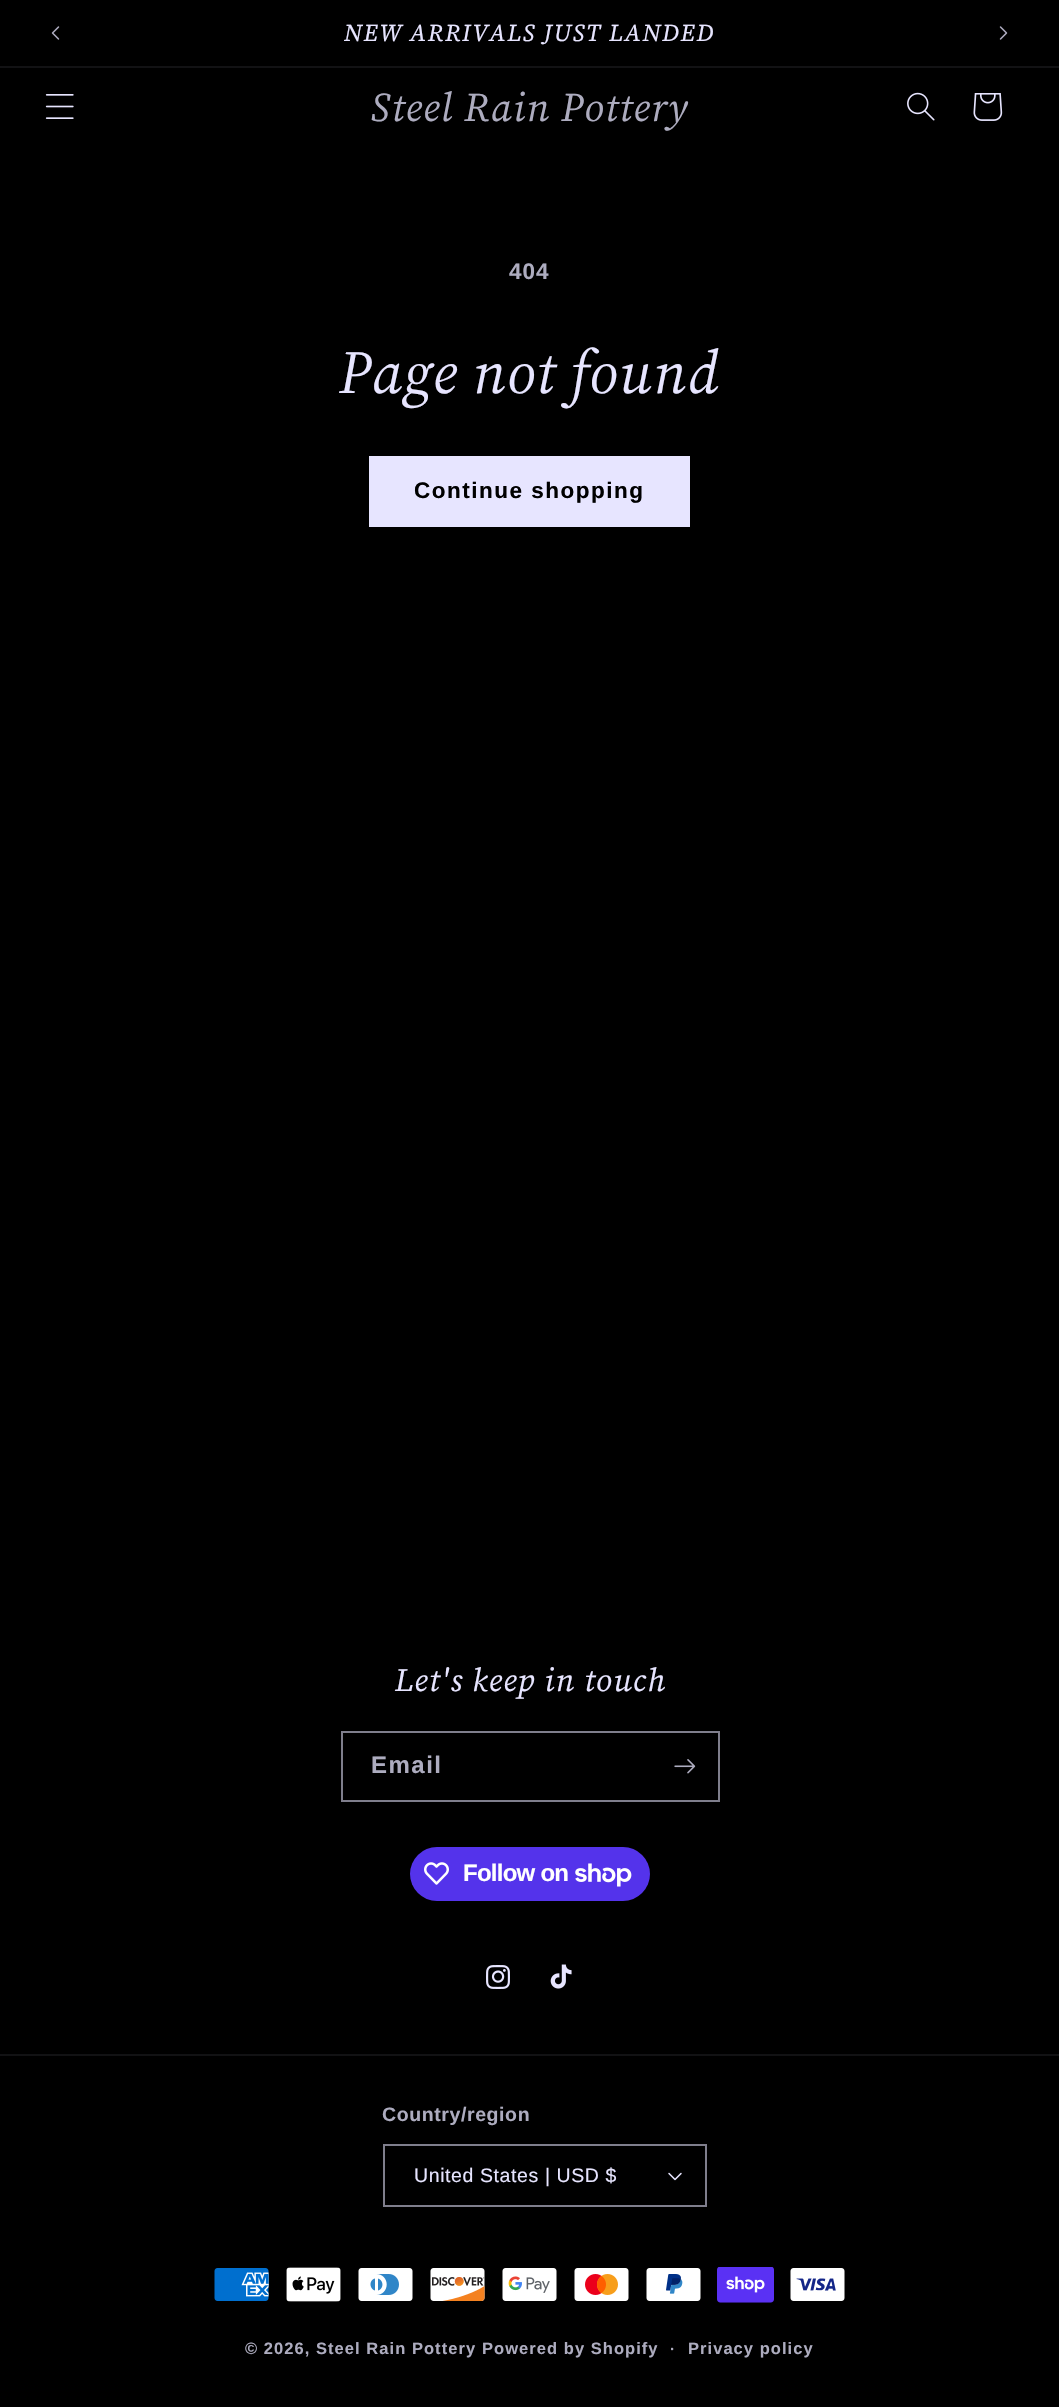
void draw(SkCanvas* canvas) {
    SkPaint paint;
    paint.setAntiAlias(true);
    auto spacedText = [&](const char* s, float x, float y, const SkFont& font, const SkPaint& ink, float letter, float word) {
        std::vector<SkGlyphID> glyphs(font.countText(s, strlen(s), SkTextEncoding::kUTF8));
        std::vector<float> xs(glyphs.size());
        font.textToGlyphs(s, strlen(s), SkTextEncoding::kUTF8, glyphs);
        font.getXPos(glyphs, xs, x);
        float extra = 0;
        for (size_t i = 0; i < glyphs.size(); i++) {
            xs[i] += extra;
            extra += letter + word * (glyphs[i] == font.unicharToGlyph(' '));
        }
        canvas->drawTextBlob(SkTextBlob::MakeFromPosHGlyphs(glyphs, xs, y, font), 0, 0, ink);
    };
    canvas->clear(0xFF000000);
    paint.setColor(0xFF121214);
    canvas->drawRect(SkRect::MakeXYWH(0, 66, 1059, 2), paint);
    canvas->drawImageRect(SkImages::DeferredFromEncodedData(SkData::MakeFromFileName("img1.png")), SkRect::MakeXYWH(51, 26, 9, 14), SkSamplingOptions());
    SkFont font1(fontMgr->matchFamilyStyle("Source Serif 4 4", SkFontStyle::Italic()), 24.25f);
    font1.setSubpixel(true);
    paint.setColor(0xFFE7E5FF);
    spacedText("NEW ARRIVALS JUST LANDED", 344, 41, font1, paint, 1.5f, 0);
    canvas->drawImageRect(SkImages::DeferredFromEncodedData(SkData::MakeFromFileName("img2.png")), SkRect::MakeXYWH(999, 26, 9, 14), SkSamplingOptions());
    canvas->drawImageRect(SkImages::DeferredFromEncodedData(SkData::MakeFromFileName("img3.png")), SkRect::MakeXYWH(45, 94, 29, 25), SkSamplingOptions());
    SkFont font2(fontMgr->matchFamilyStyle("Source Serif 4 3", SkFontStyle::Italic()), 40.5f);
    font2.setSubpixel(true);
    paint.setColor(0xFFADACBF);
    spacedText("Steel Rain Pottery", 371, 121, font2, paint, 1.25f, 0);
    canvas->drawImageRect(SkImages::DeferredFromEncodedData(SkData::MakeFromFileName("img4.png")), SkRect::MakeXYWH(907, 92, 28, 29), SkSamplingOptions());
    canvas->drawImageRect(SkImages::DeferredFromEncodedData(SkData::MakeFromFileName("img5.png")), SkRect::MakeXYWH(973, 93, 30, 28), SkSamplingOptions());
    SkFont font3(fontMgr->matchFamilyStyle("Liberation Sans", SkFontStyle::Bold()), 22.5f);
    font3.setSubpixel(true);
    spacedText("404", 509, 279, font3, paint, 1, 0);
    SkFont font4(fontMgr->matchFamilyStyle("Source Serif 4", SkFontStyle::Italic()), 60.75f);
    font4.setSubpixel(true);
    paint.setColor(0xFFE7E5FF);
    spacedText("Page not found", 339, 393, font4, paint, 1.25f, 0);
    canvas->drawRect(SkRect::MakeXYWH(369, 456, 321, 71), paint);
    paint.setColor(0xFF000000);
    spacedText("Continue shopping", 414, 498, font3, paint, 1.5f, 0);
    SkFont font5(fontMgr->matchFamilyStyle("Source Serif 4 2", SkFontStyle::Italic()), 32.5f);
    font5.setSubpixel(true);
    paint.setColor(0xFFE7E5FF);
    spacedText("Let's keep in touch", 395, 1691, font5, paint, 1.25f, 0);
    paint.setStyle(SkPaint::kStroke_Style);
    paint.setStrokeWidth(2);
    paint.setColor(0xFF7F7E8C);
    canvas->drawRect(SkRect::MakeXYWH(342, 1732, 377, 69), paint);
    SkFont font6(fontMgr->matchFamilyStyle("Liberation Sans", SkFontStyle::Bold()), 24);
    font6.setSubpixel(true);
    paint.setStyle(SkPaint::kFill_Style);
    paint.setColor(0xFFADACBF);
    spacedText("Email", 371, 1773, font6, paint, 1.5f, 0);
    canvas->drawImageRect(SkImages::DeferredFromEncodedData(SkData::MakeFromFileName("img6.png")), SkRect::MakeXYWH(674, 1759, 22, 15), SkSamplingOptions());
    paint.setColor(0xFF5433EB);
    canvas->drawRoundRect(SkRect::MakeXYWH(410, 1847, 240, 54), 27, 27, paint);
    canvas->drawImageRect(SkImages::DeferredFromEncodedData(SkData::MakeFromFileName("img7.png")), SkRect::MakeXYWH(424, 1862, 25, 23), SkSamplingOptions());
    paint.setColor(0xFFFFFFFF);
    spacedText("Follow on", 463, 1881, font6, paint, -0.75f, 0);
    canvas->drawImageRect(SkImages::DeferredFromEncodedData(SkData::MakeFromFileName("img8.png")), SkRect::MakeXYWH(575, 1863, 57, 24), SkSamplingOptions());
    canvas->drawImageRect(SkImages::DeferredFromEncodedData(SkData::MakeFromFileName("img9.png")), SkRect::MakeXYWH(486, 1965, 24, 24), SkSamplingOptions());
    canvas->drawImageRect(SkImages::DeferredFromEncodedData(SkData::MakeFromFileName("img10.png")), SkRect::MakeXYWH(550, 1964, 22, 25), SkSamplingOptions());
    paint.setColor(0xFF121214);
    canvas->drawRect(SkRect::MakeXYWH(0, 2054, 1059, 2), paint);
    SkFont font7(fontMgr->matchFamilyStyle("Liberation Sans", SkFontStyle::Bold()), 19.5f);
    font7.setSubpixel(true);
    paint.setColor(0xFFADACBF);
    spacedText("Country/region", 382, 2121, font7, paint, 0.6f, 0);
    canvas->drawImageRect(SkImages::DeferredFromEncodedData(SkData::MakeFromFileName("img11.png")), SkRect::MakeXYWH(668, 2172, 14, 9), SkSamplingOptions());
    paint.setStyle(SkPaint::kStroke_Style);
    paint.setColor(0xFF7F7E8C);
    canvas->drawRect(SkRect::MakeXYWH(384, 2145, 322, 61), paint);
    SkFont font8(fontMgr->matchFamilyStyle("Liberation Sans", SkFontStyle::Normal()), 19.5f);
    font8.setSubpixel(true);
    paint.setStyle(SkPaint::kFill_Style);
    paint.setColor(0xFFE7E5FF);
    spacedText("United States | USD $", 414, 2182, font8, paint, 0.6f, 0);
    canvas->drawImageRect(SkImages::DeferredFromEncodedData(SkData::MakeFromFileName("img12.png")), SkRect::MakeXYWH(214, 2268, 55, 33), SkSamplingOptions());
    canvas->drawImageRect(SkImages::DeferredFromEncodedData(SkData::MakeFromFileName("img13.png")), SkRect::MakeXYWH(286, 2267, 55, 35), SkSamplingOptions());
    canvas->drawImageRect(SkImages::DeferredFromEncodedData(SkData::MakeFromFileName("img14.png")), SkRect::MakeXYWH(358, 2268, 55, 33), SkSamplingOptions());
    canvas->drawImageRect(SkImages::DeferredFromEncodedData(SkData::MakeFromFileName("img15.png")), SkRect::MakeXYWH(430, 2268, 55, 33), SkSamplingOptions());
    canvas->drawImageRect(SkImages::DeferredFromEncodedData(SkData::MakeFromFileName("img16.png")), SkRect::MakeXYWH(502, 2268, 55, 33), SkSamplingOptions());
    canvas->drawImageRect(SkImages::DeferredFromEncodedData(SkData::MakeFromFileName("img17.png")), SkRect::MakeXYWH(574, 2268, 55, 33), SkSamplingOptions());
    canvas->drawImageRect(SkImages::DeferredFromEncodedData(SkData::MakeFromFileName("img18.png")), SkRect::MakeXYWH(646, 2268, 55, 33), SkSamplingOptions());
    canvas->drawImageRect(SkImages::DeferredFromEncodedData(SkData::MakeFromFileName("img19.png")), SkRect::MakeXYWH(717, 2267, 57, 36), SkSamplingOptions());
    canvas->drawImageRect(SkImages::DeferredFromEncodedData(SkData::MakeFromFileName("img20.png")), SkRect::MakeXYWH(790, 2268, 55, 33), SkSamplingOptions());
    SkFont font9(fontMgr->matchFamilyStyle("Liberation Sans", SkFontStyle::Bold()), 16.5f);
    font9.setSubpixel(true);
    paint.setColor(0xFFADACBF);
    spacedText("© 2026, Steel Rain Pottery", 245, 2354, font9, paint, 1.05f, 0);
    spacedText("Powered by Shopify", 482, 2354, font9, paint, 1.05f, 0);
    SkFont font10(fontMgr->matchFamilyStyle("Liberation Sans", SkFontStyle::Bold()), 15);
    font10.setSubpixel(true);
    spacedText("·", 670, 2354, font10, paint, 1.05f, 0);
    spacedText("Privacy policy", 688, 2354, font9, paint, 1.05f, 0);
}
